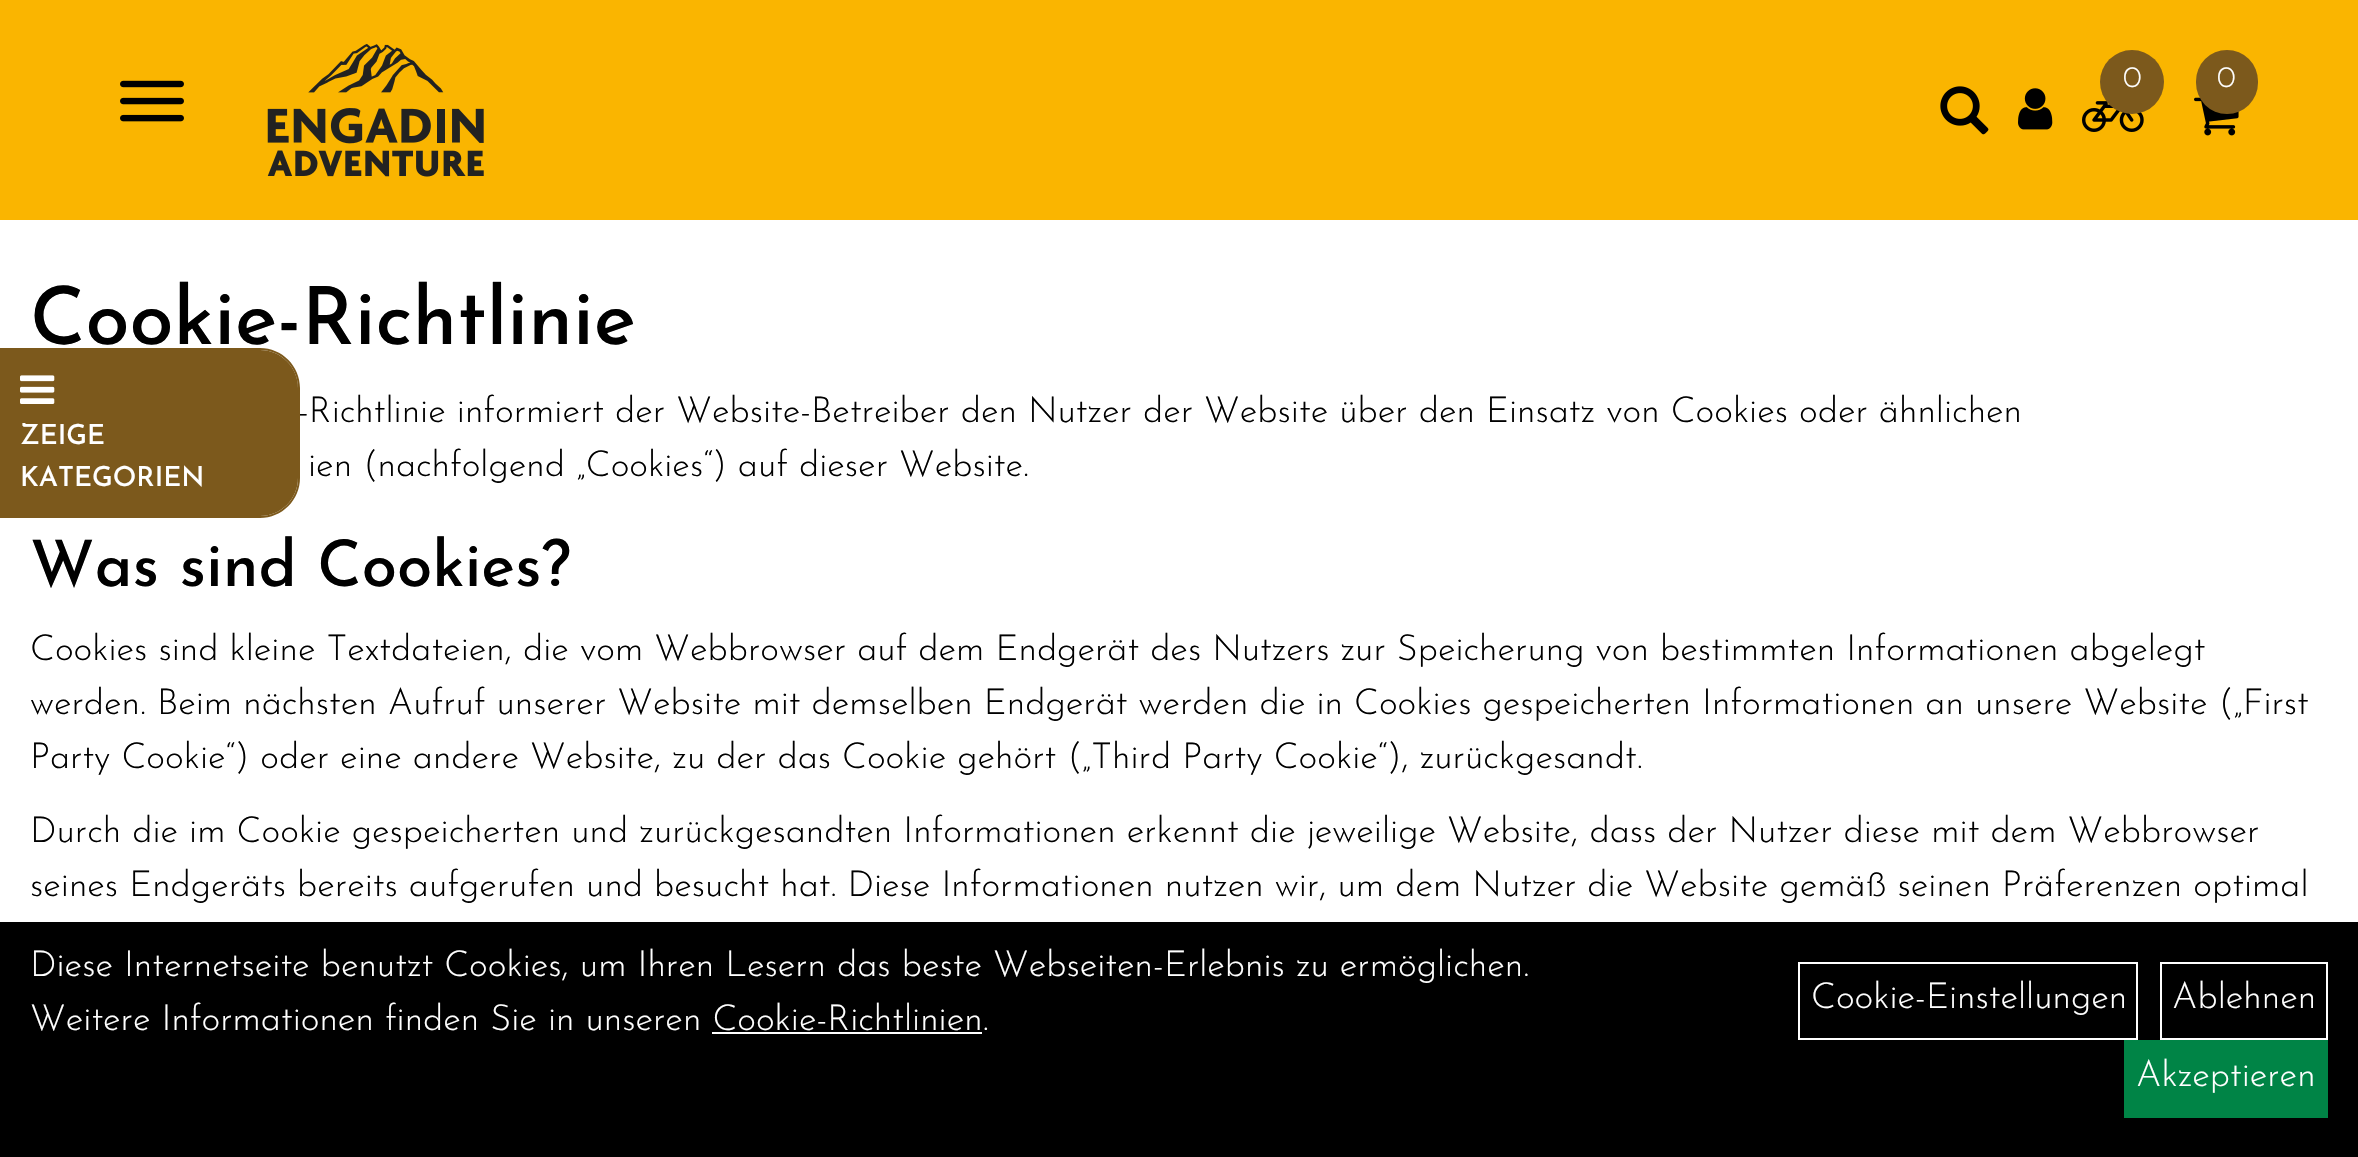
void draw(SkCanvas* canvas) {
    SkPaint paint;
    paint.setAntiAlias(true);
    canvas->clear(0xFFFFFFFF);
    paint.setColor(0xFFFAB500);
    canvas->drawRect(SkRect::MakeXYWH(0, 0, 2358, 220), paint);
    canvas->drawImageRect(SkImages::DeferredFromEncodedData(SkData::MakeFromFileName("img1.png")), SkRect::MakeXYWH(120, 80, 64, 42), SkSamplingOptions());
    canvas->drawImageRect(SkImages::DeferredFromEncodedData(SkData::MakeFromFileName("img2.png")), SkRect::MakeXYWH(267, 43, 217, 134), SkSamplingOptions());
    canvas->drawImageRect(SkImages::DeferredFromEncodedData(SkData::MakeFromFileName("img3.png")), SkRect::MakeXYWH(2082, 101, 62, 31), SkSamplingOptions());
    paint.setColor(0xFF7C591C);
    canvas->drawCircle(2132, 82, 32, paint);
    SkFont font1(fontMgr->matchFamilyStyle("Josefin Sans", SkFontStyle(300, SkFontStyle::kNormal_Width, SkFontStyle::kUpright_Slant)), 30);
    font1.setSubpixel(true);
    paint.setColor(0xFFFFFFFF);
    canvas->drawString("0", 2123, 87, font1, paint);
    canvas->drawImageRect(SkImages::DeferredFromEncodedData(SkData::MakeFromFileName("img4.png")), SkRect::MakeXYWH(2194, 97, 45, 39), SkSamplingOptions());
    paint.setColor(0xFF7C591C);
    canvas->drawRoundRect(SkRect::MakeXYWH(2196, 50, 62, 64), 31, 31, paint);
    paint.setColor(0xFFFFFFFF);
    canvas->drawString("0", 2217, 87, font1, paint);
    canvas->drawImageRect(SkImages::DeferredFromEncodedData(SkData::MakeFromFileName("img5.png")), SkRect::MakeXYWH(1940, 86, 49, 49), SkSamplingOptions());
    canvas->drawImageRect(SkImages::DeferredFromEncodedData(SkData::MakeFromFileName("img6.png")), SkRect::MakeXYWH(2018, 88, 35, 42), SkSamplingOptions());
    SkFont font2(fontMgr->matchFamilyStyle("Josefin Sans", SkFontStyle(500, SkFontStyle::kNormal_Width, SkFontStyle::kUpright_Slant)), 80);
    font2.setSubpixel(true);
    paint.setColor(0xFF000000);
    canvas->drawString("Cookie-Richtlinie", 30, 344, font2, paint);
    SkFont font3(fontMgr->matchFamilyStyle("Josefin Sans", SkFontStyle(300, SkFontStyle::kNormal_Width, SkFontStyle::kUpright_Slant)), 36);
    font3.setSubpixel(true);
    canvas->drawString("-Richtlinie informiert der Website-Betreiber den Nutzer der Website über den Einsatz von Cookies oder ähnlichen", 298, 422, font3, paint);
    canvas->drawString("ien (nachfolgend „Cookies“) auf dieser Website.", 308, 476, font3, paint);
    SkFont font4(fontMgr->matchFamilyStyle("Josefin Sans", SkFontStyle(500, SkFontStyle::kNormal_Width, SkFontStyle::kUpright_Slant)), 64);
    font4.setSubpixel(true);
    canvas->drawString("Was sind Cookies?", 30, 586, font4, paint);
    canvas->drawString("Cookies sind kleine Textdateien, die vom Webbrowser auf dem Endgerät des Nutzers zur Speicherung von bestimmten Informationen abgelegt", 30, 660, font3, paint);
    canvas->drawString("werden. Beim nächsten Aufruf unserer Website mit demselben Endgerät werden die in Cookies gespeicherten Informationen an unsere Website („First", 30, 714, font3, paint);
    canvas->drawString("Party Cookie“) oder eine andere Website, zu der das Cookie gehört („Third Party Cookie“), zurückgesandt.", 30, 768, font3, paint);
    canvas->drawString("Durch die im Cookie gespeicherten und zurückgesandten Informationen erkennt die jeweilige Website, dass der Nutzer diese mit dem Webbrowser", 30, 842, font3, paint);
    canvas->drawString("seines Endgeräts bereits aufgerufen und besucht hat. Diese Informationen nutzen wir, um dem Nutzer die Website gemäß seinen Präferenzen optimal", 30, 896, font3, paint);
    paint.setColor(0xFF7C591C);
    canvas->drawPath(SkPathBuilder(SkPathFillType::kEvenOdd).moveTo(0, 348).lineTo(260, 348).cubicTo(282, 348, 300, 366, 300, 388).lineTo(300, 478).cubicTo(300, 500, 282, 518, 260, 518).lineTo(0, 518).close().moveTo(0, 350).lineTo(260, 350).cubicTo(281, 350, 298, 367, 298, 388).lineTo(298, 478).cubicTo(298, 499, 281, 516, 260, 516).lineTo(0, 516).close().detach(), paint);
    canvas->drawPath(SkPathBuilder().moveTo(0, 350).lineTo(260, 350).cubicTo(281, 350, 298, 367, 298, 388).lineTo(298, 478).cubicTo(298, 499, 281, 516, 260, 516).lineTo(0, 516).close().detach(), paint);
    canvas->drawImageRect(SkImages::DeferredFromEncodedData(SkData::MakeFromFileName("img7.png")), SkRect::MakeXYWH(20, 375, 35, 29), SkSamplingOptions());
    SkFont font5(fontMgr->matchFamilyStyle("Josefin Sans", SkFontStyle(500, SkFontStyle::kNormal_Width, SkFontStyle::kUpright_Slant)), 27.5f);
    font5.setSubpixel(true);
    paint.setColor(0xFFFFFFFF);
    canvas->drawString("ZEIGE", 20, 444, font5, paint);
    canvas->drawString("KATEGORIEN", 20, 486, font5, paint);
    paint.setColor(0xFF000000);
    canvas->drawRect(SkRect::MakeXYWH(0, 922, 2358, 235), paint);
    paint.setColor(0xFFFFFFFF);
    canvas->drawString("Diese Internetseite benutzt Cookies, um Ihren Lesern das beste Webseiten-Erlebnis zu ermöglichen.", 30, 976, font3, paint);
    canvas->drawString("Weitere Informationen finden Sie in unseren Cookie-Richtlinien.", 30, 1030, font3, paint);
    canvas->drawRect(SkRect::MakeXYWH(712, 1032, 270, 2), paint);
    paint.setStyle(SkPaint::kStroke_Style);
    paint.setStrokeWidth(2);
    canvas->drawRect(SkRect::MakeXYWH(1799, 963, 338, 76), paint);
    paint.setStyle(SkPaint::kFill_Style);
    canvas->drawString("Cookie-Einstellungen", 1811, 1008, font3, paint);
    paint.setStyle(SkPaint::kStroke_Style);
    canvas->drawRect(SkRect::MakeXYWH(2161, 963, 166, 76), paint);
    paint.setStyle(SkPaint::kFill_Style);
    canvas->drawString("Ablehnen", 2172, 1008, font3, paint);
    paint.setColor(0xFF008446);
    canvas->drawRect(SkRect::MakeXYWH(2124, 1040, 204, 78), paint);
    paint.setColor(0xFFFFFFFF);
    canvas->drawString("Akzeptieren", 2136, 1086, font3, paint);
}
